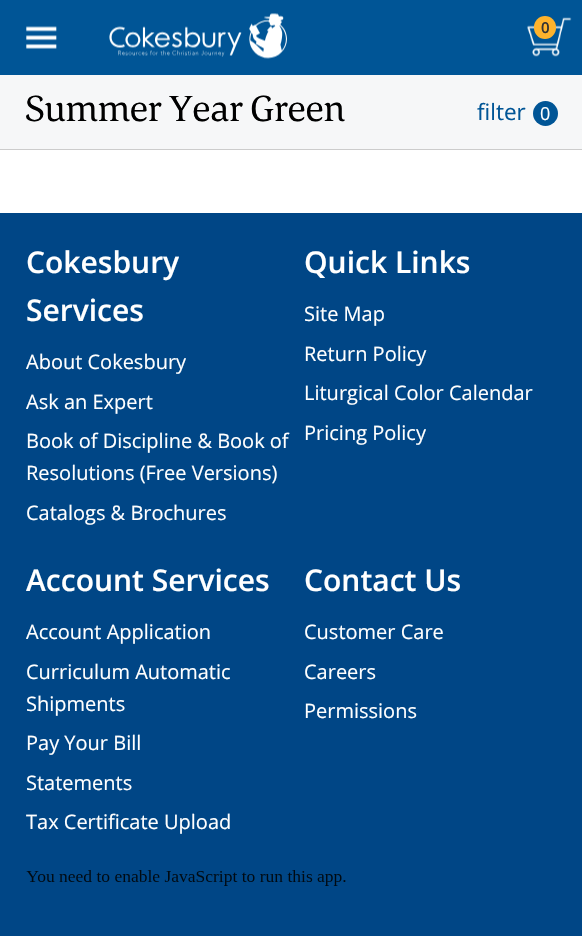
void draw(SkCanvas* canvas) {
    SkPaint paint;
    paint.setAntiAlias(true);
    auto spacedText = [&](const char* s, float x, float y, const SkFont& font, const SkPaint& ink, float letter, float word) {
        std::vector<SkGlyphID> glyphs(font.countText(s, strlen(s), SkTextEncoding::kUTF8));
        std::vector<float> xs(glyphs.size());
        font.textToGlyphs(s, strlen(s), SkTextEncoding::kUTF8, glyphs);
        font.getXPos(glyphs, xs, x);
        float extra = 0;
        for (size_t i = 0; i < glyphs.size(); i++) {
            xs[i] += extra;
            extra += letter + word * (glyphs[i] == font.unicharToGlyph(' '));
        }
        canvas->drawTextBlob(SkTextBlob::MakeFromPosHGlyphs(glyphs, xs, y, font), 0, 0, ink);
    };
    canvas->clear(0xFFFFFFFF);
    paint.setColor(0xFF005596);
    canvas->drawRect(SkRect::MakeXYWH(0, 0, 582, 75), paint);
    canvas->drawImageRect(SkImages::DeferredFromEncodedData(SkData::MakeFromFileName("img1.png")), SkRect::MakeXYWH(26, 26, 31, 23), SkSamplingOptions());
    canvas->drawImageRect(SkImages::DeferredFromEncodedData(SkData::MakeFromFileName("img2.png")), SkRect::MakeXYWH(109, 13, 178, 46), SkSamplingOptions());
    canvas->drawImageRect(SkImages::DeferredFromEncodedData(SkData::MakeFromFileName("img3.png")), SkRect::MakeXYWH(527, 17, 45, 40), SkSamplingOptions());
    paint.setColor(0xFFFFB32C);
    canvas->drawRoundRect(SkRect::MakeXYWH(534, 16, 22, 23), 11, 11, paint);
    SkFont font1(fontMgr->matchFamilyStyle("Open Sans", SkFontStyle(600, SkFontStyle::kNormal_Width, SkFontStyle::kUpright_Slant)), 15);
    font1.setSubpixel(true);
    paint.setColor(0xFF333333);
    canvas->drawString("0", 541, 33, font1, paint);
    paint.setColor(0xFFF6F7F8);
    canvas->drawRect(SkRect::MakeXYWH(0, 75, 582, 74), paint);
    paint.setColor(0xFFCCCCCC);
    canvas->drawRect(SkRect::MakeXYWH(0, 149, 582, 1), paint);
    SkFont font2(fontMgr->matchFamilyStyle("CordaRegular", SkFontStyle::Normal()), 37.5f);
    font2.setSubpixel(true);
    paint.setColor(0xFF000000);
    spacedText("Summer Year Green", 25, 121, font2, paint, -0.6f, 0);
    SkFont font3(fontMgr->matchFamilyStyle("Open Sans", SkFontStyle::Normal()), 22.5f);
    font3.setSubpixel(true);
    paint.setColor(0xFF005596);
    canvas->drawString("filter", 477, 120, font3, paint);
    canvas->drawCircle(545.5f, 113.5f, 12.5f, paint);
    SkFont font4(fontMgr->matchFamilyStyle("Open Sans", SkFontStyle::Normal()), 18);
    font4.setSubpixel(true);
    paint.setColor(0xFFFFFFFF);
    canvas->drawString("0", 540, 120, font4, paint);
    paint.setColor(0xFF004686);
    canvas->drawRect(SkRect::MakeXYWH(0, 213, 582, 723), paint);
    SkFont font5(fontMgr->matchFamilyStyle("Open Sans", SkFontStyle(600, SkFontStyle::kNormal_Width, SkFontStyle::kUpright_Slant)), 30);
    font5.setSubpixel(true);
    paint.setColor(0xFFFFFFFF);
    canvas->drawString("Cokesbury", 26, 273, font5, paint);
    canvas->drawString("Services", 26, 321, font5, paint);
    SkFont font6(fontMgr->matchFamilyStyle("Open Sans", SkFontStyle::Normal()), 20);
    font6.setSubpixel(true);
    canvas->drawString("About Cokesbury", 26, 369, font6, paint);
    canvas->drawString("Ask an Expert", 26, 409, font6, paint);
    canvas->drawString("Book of Discipline & Book of", 26, 448, font6, paint);
    canvas->drawString("Resolutions (Free Versions)", 26, 480, font6, paint);
    canvas->drawString("Catalogs & Brochures", 26, 520, font6, paint);
    canvas->drawString("Quick Links", 304, 273, font5, paint);
    canvas->drawString("Site Map", 304, 321, font6, paint);
    canvas->drawString("Return Policy", 304, 361, font6, paint);
    canvas->drawString("Liturgical Color Calendar", 304, 400, font6, paint);
    canvas->drawString("Pricing Policy", 304, 440, font6, paint);
    canvas->drawString("Account Services", 26, 591, font5, paint);
    canvas->drawString("Account Application", 26, 639, font6, paint);
    canvas->drawString("Curriculum Automatic", 26, 679, font6, paint);
    canvas->drawString("Shipments", 26, 711, font6, paint);
    canvas->drawString("Pay Your Bill", 26, 750, font6, paint);
    canvas->drawString("Statements", 26, 790, font6, paint);
    canvas->drawString("Tax Certificate Upload", 26, 829, font6, paint);
    canvas->drawString("Contact Us", 304, 591, font5, paint);
    canvas->drawString("Customer Care", 304, 639, font6, paint);
    canvas->drawString("Careers", 304, 679, font6, paint);
    canvas->drawString("Permissions", 304, 718, font6, paint);
    canvas->drawImageRect(SkImages::DeferredFromEncodedData(SkData::MakeFromFileName("img4.png")), SkRect::MakeXYWH(26, 870, 320, 16), SkSamplingOptions());
}
